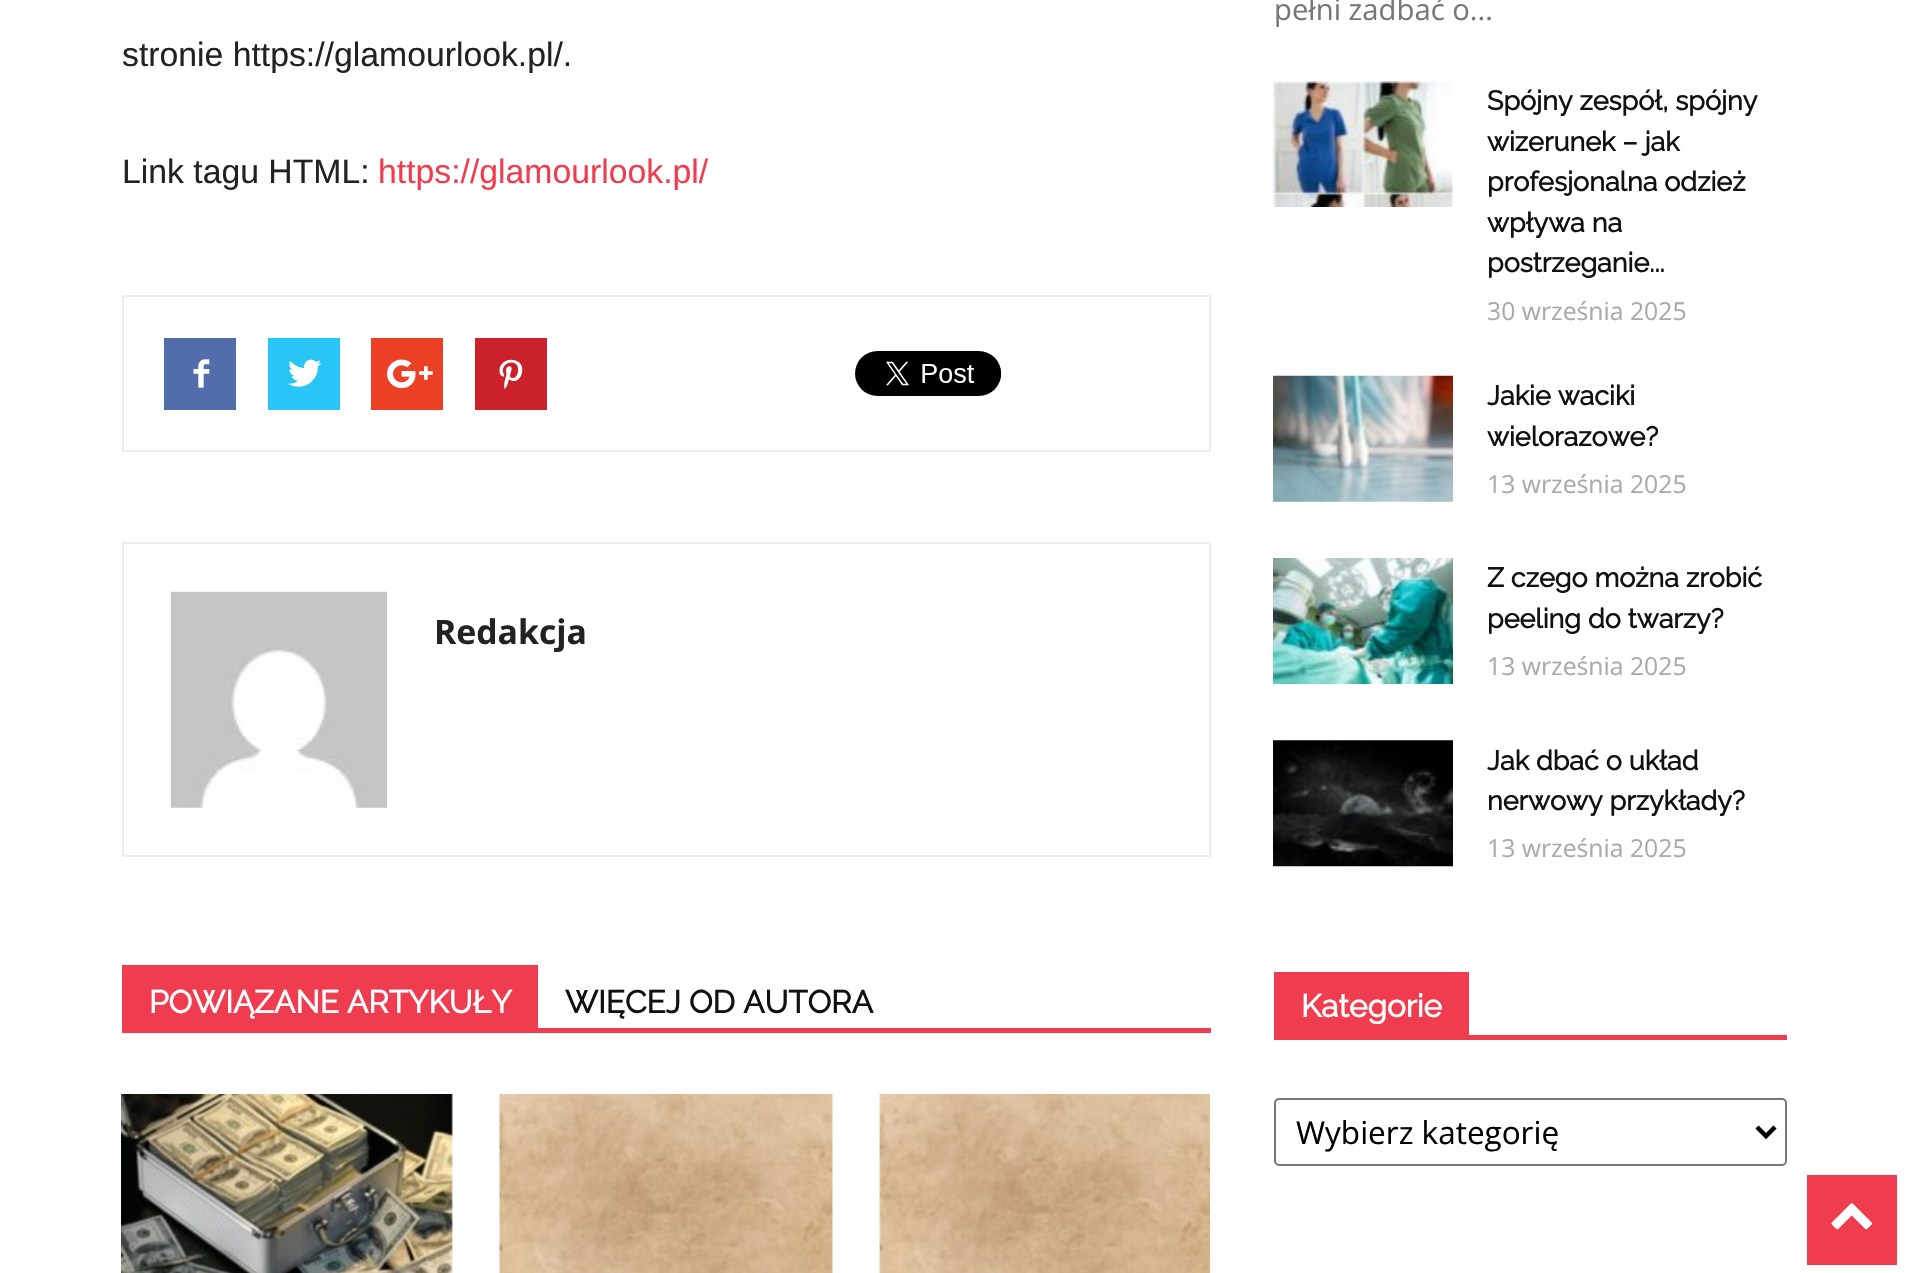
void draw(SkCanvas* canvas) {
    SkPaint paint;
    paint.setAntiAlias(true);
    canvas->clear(0xFFFFFFFF);
    SkFont font1(fontMgr->matchFamilyStyle("Liberation Sans", SkFontStyle::Normal()), 33.75f);
    font1.setSubpixel(true);
    paint.setColor(0xFF222222);
    canvas->drawString("stronie https://glamourlook.pl/.", 122, 66, font1, paint);
    canvas->drawString("Link tagu HTML:", 122, 183, font1, paint);
    paint.setColor(0xFFEF3D4F);
    canvas->drawString("https://glamourlook.pl/", 378, 183, font1, paint);
    paint.setStyle(SkPaint::kStroke_Style);
    paint.setStrokeWidth(2);
    paint.setColor(0xFFEDEDED);
    canvas->drawRect(SkRect::MakeXYWH(123, 296, 1087, 155), paint);
    paint.setStyle(SkPaint::kFill_Style);
    paint.setColor(0xFF516EAB);
    canvas->drawRect(SkRect::MakeXYWH(164, 338, 72, 72), paint);
    canvas->drawImageRect(SkImages::DeferredFromEncodedData(SkData::MakeFromFileName("img1.png")), SkRect::MakeXYWH(193, 359, 17, 29), SkSamplingOptions());
    paint.setColor(0xFF29C5F6);
    canvas->drawRect(SkRect::MakeXYWH(268, 338, 72, 72), paint);
    canvas->drawImageRect(SkImages::DeferredFromEncodedData(SkData::MakeFromFileName("img2.png")), SkRect::MakeXYWH(288, 359, 33, 28), SkSamplingOptions());
    paint.setColor(0xFFEB4026);
    canvas->drawRect(SkRect::MakeXYWH(371, 338, 72, 72), paint);
    canvas->drawImageRect(SkImages::DeferredFromEncodedData(SkData::MakeFromFileName("img3.png")), SkRect::MakeXYWH(387, 359, 46, 30), SkSamplingOptions());
    paint.setColor(0xFFCA212A);
    canvas->drawRect(SkRect::MakeXYWH(475, 338, 72, 72), paint);
    canvas->drawImageRect(SkImages::DeferredFromEncodedData(SkData::MakeFromFileName("img4.png")), SkRect::MakeXYWH(499, 359, 24, 30), SkSamplingOptions());
    canvas->drawImageRect(SkImages::DeferredFromEncodedData(SkData::MakeFromFileName("img5.png")), SkRect::MakeXYWH(855, 351, 147, 45), SkSamplingOptions());
    paint.setStyle(SkPaint::kStroke_Style);
    paint.setColor(0xFFEDEDED);
    canvas->drawRect(SkRect::MakeXYWH(123, 543, 1087, 313), paint);
    canvas->drawImageRect(SkImages::DeferredFromEncodedData(SkData::MakeFromFileName("img6.png")), SkRect::MakeXYWH(171, 591, 216, 217), SkSamplingOptions());
    SkFont font2(fontMgr->matchFamilyStyle("Open Sans", SkFontStyle::Bold()), 33.75f);
    font2.setSubpixel(true);
    paint.setStyle(SkPaint::kFill_Style);
    paint.setColor(0xFF222222);
    canvas->drawString("Redakcja", 434, 644, font2, paint);
    paint.setColor(0xFFEF3D4F);
    canvas->drawRect(SkRect::MakeXYWH(122, 1028, 1089, 5), paint);
    canvas->drawRect(SkRect::MakeXYWH(122, 965, 416, 63), paint);
    SkFont font3(fontMgr->matchFamilyStyle("Raleway", SkFontStyle::Bold()), 31.5f);
    font3.setSubpixel(true);
    paint.setColor(0xFFFFFFFF);
    canvas->drawString("POWIĄZANE ARTYKUŁY", 149, 1013, font3, paint);
    paint.setColor(0xFF111111);
    canvas->drawString("WIĘCEJ OD AUTORA", 565, 1013, font3, paint);
    canvas->drawImageRect(SkImages::DeferredFromEncodedData(SkData::MakeFromFileName("img7.png")), SkRect::MakeXYWH(121, 1094, 332, 179), SkSamplingOptions());
    canvas->drawImageRect(SkImages::DeferredFromEncodedData(SkData::MakeFromFileName("img8.png")), SkRect::MakeXYWH(499, 1094, 334, 179), SkSamplingOptions());
    canvas->drawImageRect(SkImages::DeferredFromEncodedData(SkData::MakeFromFileName("img9.png")), SkRect::MakeXYWH(879, 1094, 331, 179), SkSamplingOptions());
    SkFont font4(fontMgr->matchFamilyStyle("Open Sans", SkFontStyle::Normal()), 29.25f);
    font4.setSubpixel(true);
    paint.setColor(0xFF777777);
    canvas->drawString("pełni zadbać o...", 1274, 20, font4, paint);
    canvas->drawImageRect(SkImages::DeferredFromEncodedData(SkData::MakeFromFileName("img10.png")), SkRect::MakeXYWH(1273, 81, 180, 126), SkSamplingOptions());
    SkFont font5(fontMgr->matchFamilyStyle("Raleway", SkFontStyle::Bold()), 27);
    font5.setSubpixel(true);
    paint.setColor(0xFF111111);
    canvas->drawString("Spójny zespół, spójny", 1487, 110, font5, paint);
    canvas->drawString("wizerunek – jak", 1487, 151, font5, paint);
    canvas->drawString("profesjonalna odzież", 1487, 191, font5, paint);
    canvas->drawString("wpływa na", 1487, 232, font5, paint);
    canvas->drawString("postrzeganie...", 1487, 272, font5, paint);
    SkFont font6(fontMgr->matchFamilyStyle("Open Sans", SkFontStyle::Normal()), 24.75f);
    font6.setSubpixel(true);
    paint.setColor(0xFFAAAAAA);
    canvas->drawString("30 września 2025", 1487, 320, font6, paint);
    canvas->drawImageRect(SkImages::DeferredFromEncodedData(SkData::MakeFromFileName("img11.png")), SkRect::MakeXYWH(1273, 375, 180, 127), SkSamplingOptions());
    paint.setColor(0xFF111111);
    canvas->drawString("Jakie waciki", 1487, 405, font5, paint);
    canvas->drawString("wielorazowe?", 1487, 446, font5, paint);
    paint.setColor(0xFFAAAAAA);
    canvas->drawString("13 września 2025", 1487, 493, font6, paint);
    canvas->drawImageRect(SkImages::DeferredFromEncodedData(SkData::MakeFromFileName("img12.png")), SkRect::MakeXYWH(1273, 558, 180, 126), SkSamplingOptions());
    paint.setColor(0xFF111111);
    canvas->drawString("Z czego można zrobić", 1487, 587, font5, paint);
    canvas->drawString("peeling do twarzy?", 1487, 628, font5, paint);
    paint.setColor(0xFFAAAAAA);
    canvas->drawString("13 września 2025", 1487, 675, font6, paint);
    canvas->drawImageRect(SkImages::DeferredFromEncodedData(SkData::MakeFromFileName("img13.png")), SkRect::MakeXYWH(1273, 740, 180, 127), SkSamplingOptions());
    paint.setColor(0xFF111111);
    canvas->drawString("Jak dbać o układ", 1487, 770, font5, paint);
    canvas->drawString("nerwowy przykłady?", 1487, 810, font5, paint);
    paint.setColor(0xFFAAAAAA);
    canvas->drawString("13 września 2025", 1487, 857, font6, paint);
    paint.setColor(0xFFEF3D4F);
    canvas->drawRect(SkRect::MakeXYWH(1274, 1035, 513, 5), paint);
    canvas->drawRect(SkRect::MakeXYWH(1274, 972, 195, 63), paint);
    paint.setColor(0xFFFFFFFF);
    canvas->drawString("Kategorie", 1301, 1017, font3, paint);
    paint.setStyle(SkPaint::kStroke_Style);
    paint.setColor(0xFF767676);
    canvas->drawRoundRect(SkRect::MakeXYWH(1275, 1099, 511, 66), 4, 4, paint);
    paint.setStrokeWidth(4.5f);
    paint.setColor(0xFF000000);
    canvas->drawPath(SkPathBuilder().moveTo(1757, 1127).lineTo(1766, 1136).lineTo(1775, 1127).detach(), paint);
    SkFont font7(fontMgr->matchFamilyStyle("Open Sans", SkFontStyle::Normal()), 31.5f);
    font7.setSubpixel(true);
    paint.setStyle(SkPaint::kFill_Style);
    canvas->drawString("Wybierz kategorię", 1296, 1144, font7, paint);
    paint.setColor(0xFFEF3D4F);
    canvas->drawRect(SkRect::MakeXYWH(1807, 1175, 90, 90), paint);
    canvas->drawImageRect(SkImages::DeferredFromEncodedData(SkData::MakeFromFileName("img14.png")), SkRect::MakeXYWH(1831, 1203, 41, 27), SkSamplingOptions());
}
